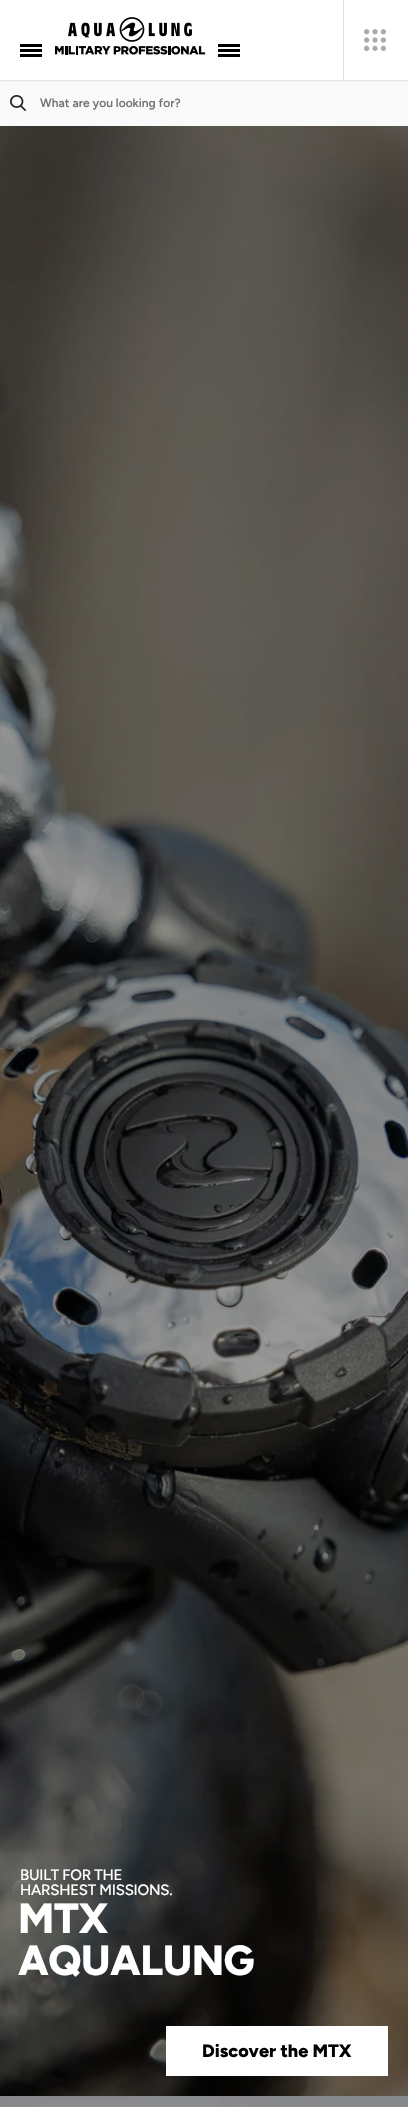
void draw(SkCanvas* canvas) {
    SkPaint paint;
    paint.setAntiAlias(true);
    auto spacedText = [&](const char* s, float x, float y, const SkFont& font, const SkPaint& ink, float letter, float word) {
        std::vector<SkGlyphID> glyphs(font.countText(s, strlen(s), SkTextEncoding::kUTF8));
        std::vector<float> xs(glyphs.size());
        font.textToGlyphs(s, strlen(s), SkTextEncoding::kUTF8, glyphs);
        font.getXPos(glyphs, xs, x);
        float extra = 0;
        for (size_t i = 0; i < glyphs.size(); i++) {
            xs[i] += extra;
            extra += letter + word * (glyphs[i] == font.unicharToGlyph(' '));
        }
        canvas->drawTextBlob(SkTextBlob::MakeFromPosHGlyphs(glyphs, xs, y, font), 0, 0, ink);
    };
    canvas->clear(0xFFFFFFFF);
    paint.setColor(0xFFFAFAFA);
    canvas->drawRect(SkRect::MakeXYWH(0, 80, 408, 46), paint);
    canvas->save();
    canvas->clipRect(SkRect::MakeXYWH(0, 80, 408, 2));
    paint.setColor(0x1C000000);
    paint.setMaskFilter(SkMaskFilter::MakeBlur(kNormal_SkBlurStyle, 1));
    canvas->drawRect(SkRect::MakeXYWH(0, 1, 408, 80), paint);
    paint.setMaskFilter(nullptr);
    canvas->restore();
    canvas->drawImageRect(SkImages::DeferredFromEncodedData(SkData::MakeFromFileName("img1.png")), SkRect::MakeXYWH(20, 17, 220, 40), SkSamplingOptions());
    paint.setColor(0xFFDFDFDF);
    canvas->drawRect(SkRect::MakeXYWH(343, 0, 1, 80), paint);
    canvas->drawImageRect(SkImages::DeferredFromEncodedData(SkData::MakeFromFileName("img2.png")), SkRect::MakeXYWH(364, 29, 22, 22), SkSamplingOptions());
    canvas->drawImageRect(SkImages::DeferredFromEncodedData(SkData::MakeFromFileName("img3.png")), SkRect::MakeXYWH(10, 95, 16, 16), SkSamplingOptions());
    SkFont font1(fontMgr->matchFamilyStyle("Figtree", SkFontStyle(600, SkFontStyle::kNormal_Width, SkFontStyle::kUpright_Slant)), 12);
    font1.setSubpixel(true);
    paint.setColor(0xFF757575);
    canvas->drawString("What are you looking for?", 40, 107, font1, paint);
    canvas->drawImageRect(SkImages::DeferredFromEncodedData(SkData::MakeFromFileName("img4.png")), SkRect::MakeXYWH(0, 126, 408, 1970), SkSamplingOptions());
    SkFont font2(fontMgr->matchFamilyStyle("Figtree", SkFontStyle(500, SkFontStyle::kNormal_Width, SkFontStyle::kUpright_Slant)), 15);
    font2.setSubpixel(true);
    paint.setColor(0xFFFFFFFF);
    spacedText("BUILT FOR THE", 20, 1880, font2, paint, -0.25f, 0);
    spacedText("HARSHEST MISSIONS.", 20, 1895, font2, paint, -0.25f, 0);
    SkFont font3(fontMgr->matchFamilyStyle("Figtree", SkFontStyle(800, SkFontStyle::kNormal_Width, SkFontStyle::kUpright_Slant)), 42);
    font3.setSubpixel(true);
    spacedText("MTX", 18, 1933, font3, paint, -0.5f, 0);
    spacedText("AQUALUNG", 18, 1975, font3, paint, -0.5f, 0);
    canvas->drawRect(SkRect::MakeXYWH(166, 2026, 222, 50), paint);
    SkFont font4(fontMgr->matchFamilyStyle("Figtree", SkFontStyle(800, SkFontStyle::kNormal_Width, SkFontStyle::kUpright_Slant)), 18);
    font4.setSubpixel(true);
    paint.setColor(0xFF000000);
    canvas->drawString("Discover the MTX", 202, 2057, font4, paint);
    canvas->drawImageRect(SkImages::DeferredFromEncodedData(SkData::MakeFromFileName("img5.png")), SkRect::MakeXYWH(0, 2096, 408, 11), SkSamplingOptions());
}
